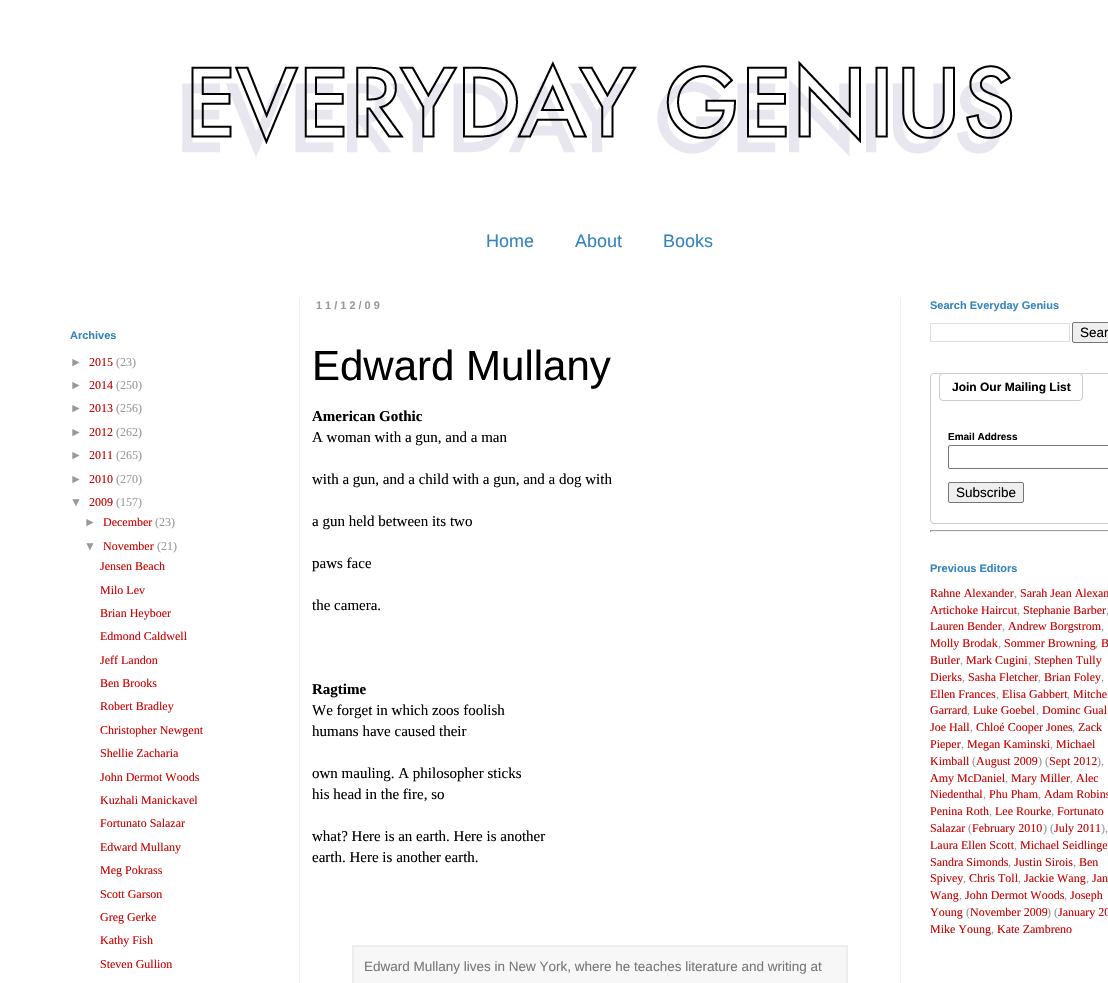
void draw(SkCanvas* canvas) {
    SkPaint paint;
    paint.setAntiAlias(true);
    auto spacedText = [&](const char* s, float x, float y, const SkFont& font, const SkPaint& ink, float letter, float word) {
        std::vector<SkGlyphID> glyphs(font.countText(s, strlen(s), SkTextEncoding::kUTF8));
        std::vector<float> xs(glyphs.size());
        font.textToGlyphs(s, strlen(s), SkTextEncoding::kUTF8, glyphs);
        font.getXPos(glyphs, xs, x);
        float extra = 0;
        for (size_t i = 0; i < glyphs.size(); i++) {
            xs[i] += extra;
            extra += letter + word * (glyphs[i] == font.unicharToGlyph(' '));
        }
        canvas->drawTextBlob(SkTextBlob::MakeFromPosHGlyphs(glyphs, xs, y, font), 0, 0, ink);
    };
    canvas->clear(0xFFFFFFFF);
    canvas->drawImageRect(SkImages::DeferredFromEncodedData(SkData::MakeFromFileName("img1.png")), SkRect::MakeXYWH(182, 60, 831, 97), SkSamplingOptions());
    SkFont font1(fontMgr->matchFamilyStyle("Liberation Sans", SkFontStyle::Normal()), 18);
    font1.setSubpixel(true);
    paint.setColor(0xFF3485BF);
    canvas->drawString("Home", 486, 247, font1, paint);
    canvas->drawString("About", 575, 247, font1, paint);
    canvas->drawString("Books", 663, 247, font1, paint);
    paint.setColor(0xFFEEEEEE);
    canvas->drawRect(SkRect::MakeXYWH(299, 299, 1, 684), paint);
    canvas->drawRect(SkRect::MakeXYWH(900, 299, 1, 684), paint);
    SkFont font2(fontMgr->matchFamilyStyle("Liberation Sans", SkFontStyle::Bold()), 11);
    font2.setSubpixel(true);
    paint.setColor(0xFF3485BF);
    canvas->drawString("Archives", 70, 339, font2, paint);
    SkFont font3(fontMgr->matchFamilyStyle("Liberation Sans", SkFontStyle::Normal()), 12);
    font3.setSubpixel(true);
    paint.setColor(0xFF999999);
    canvas->drawString("►", 70, 366, font3, paint);
    SkFont font4(fontMgr->matchFamilyStyle("Liberation Serif", SkFontStyle::Normal()), 12);
    font4.setSubpixel(true);
    paint.setColor(0xFFCC0000);
    canvas->drawString("2015", 89, 366, font4, paint);
    paint.setColor(0xFF999999);
    canvas->drawString("(23)", 116, 366, font4, paint);
    canvas->drawString("►", 70, 389, font3, paint);
    paint.setColor(0xFFCC0000);
    canvas->drawString("2014", 89, 389, font4, paint);
    paint.setColor(0xFF999999);
    canvas->drawString("(250)", 116, 389, font4, paint);
    canvas->drawString("►", 70, 412, font3, paint);
    paint.setColor(0xFFCC0000);
    canvas->drawString("2013", 89, 412, font4, paint);
    paint.setColor(0xFF999999);
    canvas->drawString("(256)", 116, 412, font4, paint);
    canvas->drawString("►", 70, 436, font3, paint);
    paint.setColor(0xFFCC0000);
    canvas->drawString("2012", 89, 436, font4, paint);
    paint.setColor(0xFF999999);
    canvas->drawString("(262)", 116, 436, font4, paint);
    canvas->drawString("►", 70, 459, font3, paint);
    paint.setColor(0xFFCC0000);
    canvas->drawString("2011", 89, 459, font4, paint);
    paint.setColor(0xFF999999);
    canvas->drawString("(265)", 116, 459, font4, paint);
    canvas->drawString("►", 70, 483, font3, paint);
    paint.setColor(0xFFCC0000);
    canvas->drawString("2010", 89, 483, font4, paint);
    paint.setColor(0xFF999999);
    canvas->drawString("(270)", 116, 483, font4, paint);
    canvas->drawString("▼", 70, 506, font3, paint);
    paint.setColor(0xFFCC0000);
    canvas->drawString("2009", 89, 506, font4, paint);
    paint.setColor(0xFF999999);
    canvas->drawString("(157)", 116, 506, font4, paint);
    canvas->drawString("►", 84, 526, font3, paint);
    paint.setColor(0xFFCC0000);
    canvas->drawString("December", 103, 526, font4, paint);
    paint.setColor(0xFF999999);
    canvas->drawString("(23)", 155, 526, font4, paint);
    canvas->drawString("▼", 84, 550, font3, paint);
    paint.setColor(0xFFCC0000);
    canvas->drawString("November", 103, 550, font4, paint);
    paint.setColor(0xFF999999);
    canvas->drawString("(21)", 157, 550, font4, paint);
    paint.setColor(0xFFCC0000);
    canvas->drawString("Jensen Beach", 100, 570, font4, paint);
    canvas->drawString("Milo Lev", 100, 594, font4, paint);
    canvas->drawString("Brian Heyboer", 100, 617, font4, paint);
    canvas->drawString("Edmond Caldwell", 100, 640, font4, paint);
    canvas->drawString("Jeff Landon", 100, 664, font4, paint);
    canvas->drawString("Ben Brooks", 100, 687, font4, paint);
    canvas->drawString("Robert Bradley", 100, 710, font4, paint);
    canvas->drawString("Christopher Newgent", 100, 734, font4, paint);
    canvas->drawString("Shellie Zacharia", 100, 757, font4, paint);
    canvas->drawString("John Dermot Woods", 100, 781, font4, paint);
    canvas->drawString("Kuzhali Manickavel", 100, 804, font4, paint);
    canvas->drawString("Fortunato Salazar", 100, 827, font4, paint);
    canvas->drawString("Edward Mullany", 100, 851, font4, paint);
    canvas->drawString("Meg Pokrass", 100, 874, font4, paint);
    canvas->drawString("Scott Garson", 100, 898, font4, paint);
    canvas->drawString("Greg Gerke", 100, 921, font4, paint);
    canvas->drawString("Kathy Fish", 100, 944, font4, paint);
    canvas->drawString("Steven Gullion", 100, 968, font4, paint);
    paint.setColor(0xFF999999);
    spacedText("11/12/09", 316, 309, font2, paint, 3, 0);
    SkFont font5(fontMgr->matchFamilyStyle("Liberation Sans", SkFontStyle::Normal()), 42);
    font5.setSubpixel(true);
    paint.setColor(0xFF000000);
    canvas->drawString("Edward Mullany", 312, 380, font5, paint);
    SkFont font6(fontMgr->matchFamilyStyle("Liberation Serif", SkFontStyle::Bold()), 15);
    font6.setSubpixel(true);
    canvas->drawString("American Gothic", 312, 421, font6, paint);
    SkFont font7(fontMgr->matchFamilyStyle("Liberation Serif", SkFontStyle::Normal()), 15);
    font7.setSubpixel(true);
    canvas->drawString("A woman with a gun, and a man", 312, 442, font7, paint);
    canvas->drawString("with a gun, and a child with a gun, and a dog with", 312, 484, font7, paint);
    canvas->drawString("a gun held between its two", 312, 526, font7, paint);
    canvas->drawString("paws face", 312, 568, font7, paint);
    canvas->drawString("the camera.", 312, 610, font7, paint);
    canvas->drawString("Ragtime", 312, 694, font6, paint);
    canvas->drawString("We forget in which zoos foolish", 312, 715, font7, paint);
    canvas->drawString("humans have caused their", 312, 736, font7, paint);
    canvas->drawString("own mauling. A philosopher sticks", 312, 778, font7, paint);
    canvas->drawString("his head in the fire, so", 312, 799, font7, paint);
    canvas->drawString("what? Here is an earth. Here is another", 312, 841, font7, paint);
    canvas->drawString("earth. Here is another earth.", 312, 862, font7, paint);
    paint.setColor(0xFFF7F7F7);
    canvas->drawRect(SkRect::MakeXYWH(353, 946, 494, 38), paint);
    paint.setStyle(SkPaint::kStroke_Style);
    paint.setStrokeWidth(2);
    paint.setColor(0xFFEDEDED);
    canvas->drawRect(SkRect::MakeXYWH(353, 946, 494, 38), paint);
    SkFont font8(fontMgr->matchFamilyStyle("Liberation Sans", SkFontStyle::Normal()), 13.5f);
    font8.setSubpixel(true);
    paint.setStyle(SkPaint::kFill_Style);
    paint.setColor(0xFF777777);
    canvas->drawString("Edward Mullany lives in New York, where he teaches literature and writing at", 364, 971, font8, paint);
    paint.setColor(0xFF3485BF);
    canvas->drawString("Search Everyday Genius", 930, 309, font2, paint);
    paint.setStyle(SkPaint::kStroke_Style);
    paint.setStrokeWidth(1);
    paint.setColor(0xFFDDDDDD);
    canvas->drawRect(SkRect::MakeXYWH(930.5f, 323.5f, 139, 18), paint);
    paint.setStyle(SkPaint::kFill_Style);
    paint.setColor(0xFFEFEFEF);
    canvas->drawRoundRect(SkRect::MakeXYWH(1072.5f, 322.5f, 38, 20), 1.5f, 1.5f, paint);
    paint.setStyle(SkPaint::kStroke_Style);
    paint.setColor(0xFF767676);
    canvas->drawRoundRect(SkRect::MakeXYWH(1072.5f, 322.5f, 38, 20), 1.5f, 1.5f, paint);
    paint.setStyle(SkPaint::kFill_Style);
    paint.setColor(0xFF000000);
    canvas->drawString("Sear", 1080, 337, font8, paint);
    paint.setStyle(SkPaint::kStroke_Style);
    paint.setColor(0xFFCCCCCC);
    canvas->drawRoundRect(SkRect::MakeXYWH(930.5f, 373.5f, 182, 150), 3.5f, 3.5f, paint);
    paint.setStyle(SkPaint::kFill_Style);
    paint.setColor(0xFFFFFFFF);
    canvas->drawRoundRect(SkRect::MakeXYWH(939.5f, 373.5f, 143, 27), 3.5f, 3.5f, paint);
    paint.setStyle(SkPaint::kStroke_Style);
    paint.setColor(0xFFCCCCCC);
    canvas->drawRoundRect(SkRect::MakeXYWH(939.5f, 373.5f, 143, 27), 3.5f, 3.5f, paint);
    SkFont font9(fontMgr->matchFamilyStyle("Liberation Sans", SkFontStyle::Bold()), 12);
    font9.setSubpixel(true);
    paint.setStyle(SkPaint::kFill_Style);
    paint.setColor(0xFF000000);
    canvas->drawString("Join Our Mailing List", 952, 391, font9, paint);
    SkFont font10(fontMgr->matchFamilyStyle("Liberation Sans", SkFontStyle::Bold()), 10);
    font10.setSubpixel(true);
    canvas->drawString("Email Address", 948, 440, font10, paint);
    paint.setStyle(SkPaint::kStroke_Style);
    paint.setColor(0xFF767676);
    canvas->drawRoundRect(SkRect::MakeXYWH(948.5f, 445.5f, 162, 23), 1.5f, 1.5f, paint);
    paint.setStyle(SkPaint::kFill_Style);
    paint.setColor(0xFFEFEFEF);
    canvas->drawRoundRect(SkRect::MakeXYWH(948.5f, 482.5f, 75, 20), 1.5f, 1.5f, paint);
    paint.setStyle(SkPaint::kStroke_Style);
    paint.setColor(0xFF767676);
    canvas->drawRoundRect(SkRect::MakeXYWH(948.5f, 482.5f, 75, 20), 1.5f, 1.5f, paint);
    paint.setStyle(SkPaint::kFill_Style);
    paint.setColor(0xFF000000);
    canvas->drawString("Subscribe", 956, 497, font8, paint);
    paint.setColor(0xFF9F9F9F);
    canvas->drawRect(SkRect::MakeXYWH(930, 530, 178, 1), paint);
    paint.setColor(0xFFEEEEEE);
    canvas->drawRect(SkRect::MakeXYWH(930, 531, 178, 1), paint);
    paint.setColor(0xFF9F9F9F);
    canvas->drawRect(SkRect::MakeXYWH(930, 530, 1, 2), paint);
    paint.setColor(0xFF3485BF);
    canvas->drawString("Previous Editors", 930, 572, font2, paint);
    paint.setColor(0xFFCC0000);
    canvas->drawString("Rahne Alexander", 930, 597, font4, paint);
    paint.setColor(0xFF999999);
    canvas->drawString(",", 1014, 597, font4, paint);
    paint.setColor(0xFFCC0000);
    canvas->drawString("Sarah Jean Alexan", 1020, 597, font4, paint);
    canvas->drawString("Artichoke Haircut", 930, 614, font4, paint);
    paint.setColor(0xFF999999);
    canvas->drawString(",", 1017, 614, font4, paint);
    paint.setColor(0xFFCC0000);
    canvas->drawString("Stephanie Barber", 1023, 614, font4, paint);
    paint.setColor(0xFF999999);
    canvas->drawString(",", 1106, 614, font4, paint);
    paint.setColor(0xFFCC0000);
    canvas->drawString("Lauren Bender", 930, 630, font4, paint);
    paint.setColor(0xFF999999);
    canvas->drawString(",", 1002, 630, font4, paint);
    paint.setColor(0xFFCC0000);
    canvas->drawString("Andrew Borgstrom", 1008, 630, font4, paint);
    paint.setColor(0xFF999999);
    canvas->drawString(",", 1101, 630, font4, paint);
    paint.setColor(0xFFCC0000);
    canvas->drawString("Molly Brodak", 930, 647, font4, paint);
    paint.setColor(0xFF999999);
    canvas->drawString(",", 998, 647, font4, paint);
    paint.setColor(0xFFCC0000);
    canvas->drawString("Sommer Browning", 1004, 647, font4, paint);
    paint.setColor(0xFF999999);
    canvas->drawString(",", 1095, 647, font4, paint);
    paint.setColor(0xFFCC0000);
    canvas->drawString("B", 1101, 647, font4, paint);
    canvas->drawString("Butler", 930, 664, font4, paint);
    paint.setColor(0xFF999999);
    canvas->drawString(",", 960, 664, font4, paint);
    paint.setColor(0xFFCC0000);
    canvas->drawString("Mark Cugini", 966, 664, font4, paint);
    paint.setColor(0xFF999999);
    canvas->drawString(",", 1028, 664, font4, paint);
    paint.setColor(0xFFCC0000);
    canvas->drawString("Stephen Tully", 1034, 664, font4, paint);
    canvas->drawString("Dierks", 930, 681, font4, paint);
    paint.setColor(0xFF999999);
    canvas->drawString(",", 962, 681, font4, paint);
    paint.setColor(0xFFCC0000);
    canvas->drawString("Sasha Fletcher", 968, 681, font4, paint);
    paint.setColor(0xFF999999);
    canvas->drawString(",", 1038, 681, font4, paint);
    paint.setColor(0xFFCC0000);
    canvas->drawString("Brian Foley", 1044, 681, font4, paint);
    paint.setColor(0xFF999999);
    canvas->drawString(",", 1101, 681, font4, paint);
    paint.setColor(0xFFCC0000);
    canvas->drawString("Ellen Frances", 930, 698, font4, paint);
    paint.setColor(0xFF999999);
    canvas->drawString(",", 996, 698, font4, paint);
    paint.setColor(0xFFCC0000);
    canvas->drawString("Elisa Gabbert", 1002, 698, font4, paint);
    paint.setColor(0xFF999999);
    canvas->drawString(",", 1067, 698, font4, paint);
    paint.setColor(0xFFCC0000);
    canvas->drawString("Mitche", 1073, 698, font4, paint);
    canvas->drawString("Garrard", 930, 714, font4, paint);
    paint.setColor(0xFF999999);
    canvas->drawString(",", 967, 714, font4, paint);
    paint.setColor(0xFFCC0000);
    canvas->drawString("Luke Goebel", 973, 714, font4, paint);
    paint.setColor(0xFF999999);
    canvas->drawString(",", 1036, 714, font4, paint);
    paint.setColor(0xFFCC0000);
    canvas->drawString("Dominc Gual", 1042, 714, font4, paint);
    canvas->drawString("Joe Hall", 930, 731, font4, paint);
    paint.setColor(0xFF999999);
    canvas->drawString(",", 970, 731, font4, paint);
    paint.setColor(0xFFCC0000);
    canvas->drawString("Chloé Cooper Jones", 976, 731, font4, paint);
    paint.setColor(0xFF999999);
    canvas->drawString(",", 1072, 731, font4, paint);
    paint.setColor(0xFFCC0000);
    canvas->drawString("Zack", 1078, 731, font4, paint);
    canvas->drawString("Pieper", 930, 748, font4, paint);
    paint.setColor(0xFF999999);
    canvas->drawString(",", 961, 748, font4, paint);
    paint.setColor(0xFFCC0000);
    canvas->drawString("Megan Kaminski", 967, 748, font4, paint);
    paint.setColor(0xFF999999);
    canvas->drawString(",", 1050, 748, font4, paint);
    paint.setColor(0xFFCC0000);
    canvas->drawString("Michael", 1056, 748, font4, paint);
    canvas->drawString("Kimball", 930, 765, font4, paint);
    paint.setColor(0xFF999999);
    canvas->drawString("(", 972, 765, font4, paint);
    paint.setColor(0xFFCC0000);
    canvas->drawString("August 2009", 976, 765, font4, paint);
    paint.setColor(0xFF999999);
    canvas->drawString(") (", 1038, 765, font4, paint);
    paint.setColor(0xFFCC0000);
    canvas->drawString("Sept 2012", 1049, 765, font4, paint);
    paint.setColor(0xFF999999);
    canvas->drawString("),", 1097, 765, font4, paint);
    paint.setColor(0xFFCC0000);
    canvas->drawString("Amy McDaniel", 930, 782, font4, paint);
    paint.setColor(0xFF999999);
    canvas->drawString(",", 1005, 782, font4, paint);
    paint.setColor(0xFFCC0000);
    canvas->drawString("Mary Miller", 1011, 782, font4, paint);
    paint.setColor(0xFF999999);
    canvas->drawString(",", 1070, 782, font4, paint);
    paint.setColor(0xFFCC0000);
    canvas->drawString("Alec", 1076, 782, font4, paint);
    canvas->drawString("Niedenthal", 930, 798, font4, paint);
    paint.setColor(0xFF999999);
    canvas->drawString(",", 983, 798, font4, paint);
    paint.setColor(0xFFCC0000);
    canvas->drawString("Phu Pham", 989, 798, font4, paint);
    paint.setColor(0xFF999999);
    canvas->drawString(",", 1038, 798, font4, paint);
    paint.setColor(0xFFCC0000);
    canvas->drawString("Adam Robins", 1044, 798, font4, paint);
    canvas->drawString("Penina Roth", 930, 815, font4, paint);
    paint.setColor(0xFF999999);
    canvas->drawString(",", 989, 815, font4, paint);
    paint.setColor(0xFFCC0000);
    canvas->drawString("Lee Rourke", 995, 815, font4, paint);
    paint.setColor(0xFF999999);
    canvas->drawString(",", 1051, 815, font4, paint);
    paint.setColor(0xFFCC0000);
    canvas->drawString("Fortunato", 1057, 815, font4, paint);
    canvas->drawString("Salazar", 930, 832, font4, paint);
    paint.setColor(0xFF999999);
    canvas->drawString("(", 968, 832, font4, paint);
    paint.setColor(0xFFCC0000);
    canvas->drawString("February 2010", 972, 832, font4, paint);
    paint.setColor(0xFF999999);
    canvas->drawString(") (", 1043, 832, font4, paint);
    paint.setColor(0xFFCC0000);
    canvas->drawString("July 2011", 1054, 832, font4, paint);
    paint.setColor(0xFF999999);
    canvas->drawString("),", 1101, 832, font4, paint);
    paint.setColor(0xFFCC0000);
    canvas->drawString("Laura Ellen Scott", 930, 849, font4, paint);
    paint.setColor(0xFF999999);
    canvas->drawString(",", 1014, 849, font4, paint);
    paint.setColor(0xFFCC0000);
    canvas->drawString("Michael Seidlinge", 1020, 849, font4, paint);
    canvas->drawString("Sandra Simonds", 930, 866, font4, paint);
    paint.setColor(0xFF999999);
    canvas->drawString(",", 1008, 866, font4, paint);
    paint.setColor(0xFFCC0000);
    canvas->drawString("Justin Sirois", 1014, 866, font4, paint);
    paint.setColor(0xFF999999);
    canvas->drawString(",", 1073, 866, font4, paint);
    paint.setColor(0xFFCC0000);
    canvas->drawString("Ben", 1079, 866, font4, paint);
    canvas->drawString("Spivey", 930, 882, font4, paint);
    paint.setColor(0xFF999999);
    canvas->drawString(",", 963, 882, font4, paint);
    paint.setColor(0xFFCC0000);
    canvas->drawString("Chris Toll", 969, 882, font4, paint);
    paint.setColor(0xFF999999);
    canvas->drawString(",", 1018, 882, font4, paint);
    paint.setColor(0xFFCC0000);
    canvas->drawString("Jackie Wang", 1024, 882, font4, paint);
    paint.setColor(0xFF999999);
    canvas->drawString(",", 1086, 882, font4, paint);
    paint.setColor(0xFFCC0000);
    canvas->drawString("Jan", 1092, 882, font4, paint);
    canvas->drawString("Wang", 930, 899, font4, paint);
    paint.setColor(0xFF999999);
    canvas->drawString(",", 959, 899, font4, paint);
    paint.setColor(0xFFCC0000);
    canvas->drawString("John Dermot Woods", 965, 899, font4, paint);
    paint.setColor(0xFF999999);
    canvas->drawString(",", 1064, 899, font4, paint);
    paint.setColor(0xFFCC0000);
    canvas->drawString("Joseph", 1070, 899, font4, paint);
    canvas->drawString("Young", 930, 916, font4, paint);
    paint.setColor(0xFF999999);
    canvas->drawString("(", 966, 916, font4, paint);
    paint.setColor(0xFFCC0000);
    canvas->drawString("November 2009", 970, 916, font4, paint);
    paint.setColor(0xFF999999);
    canvas->drawString(") (", 1047, 916, font4, paint);
    paint.setColor(0xFFCC0000);
    canvas->drawString("January 20", 1058, 916, font4, paint);
    canvas->drawString("Mike Young", 930, 933, font4, paint);
    paint.setColor(0xFF999999);
    canvas->drawString(",", 991, 933, font4, paint);
    paint.setColor(0xFFCC0000);
    canvas->drawString("Kate Zambreno", 997, 933, font4, paint);
}
